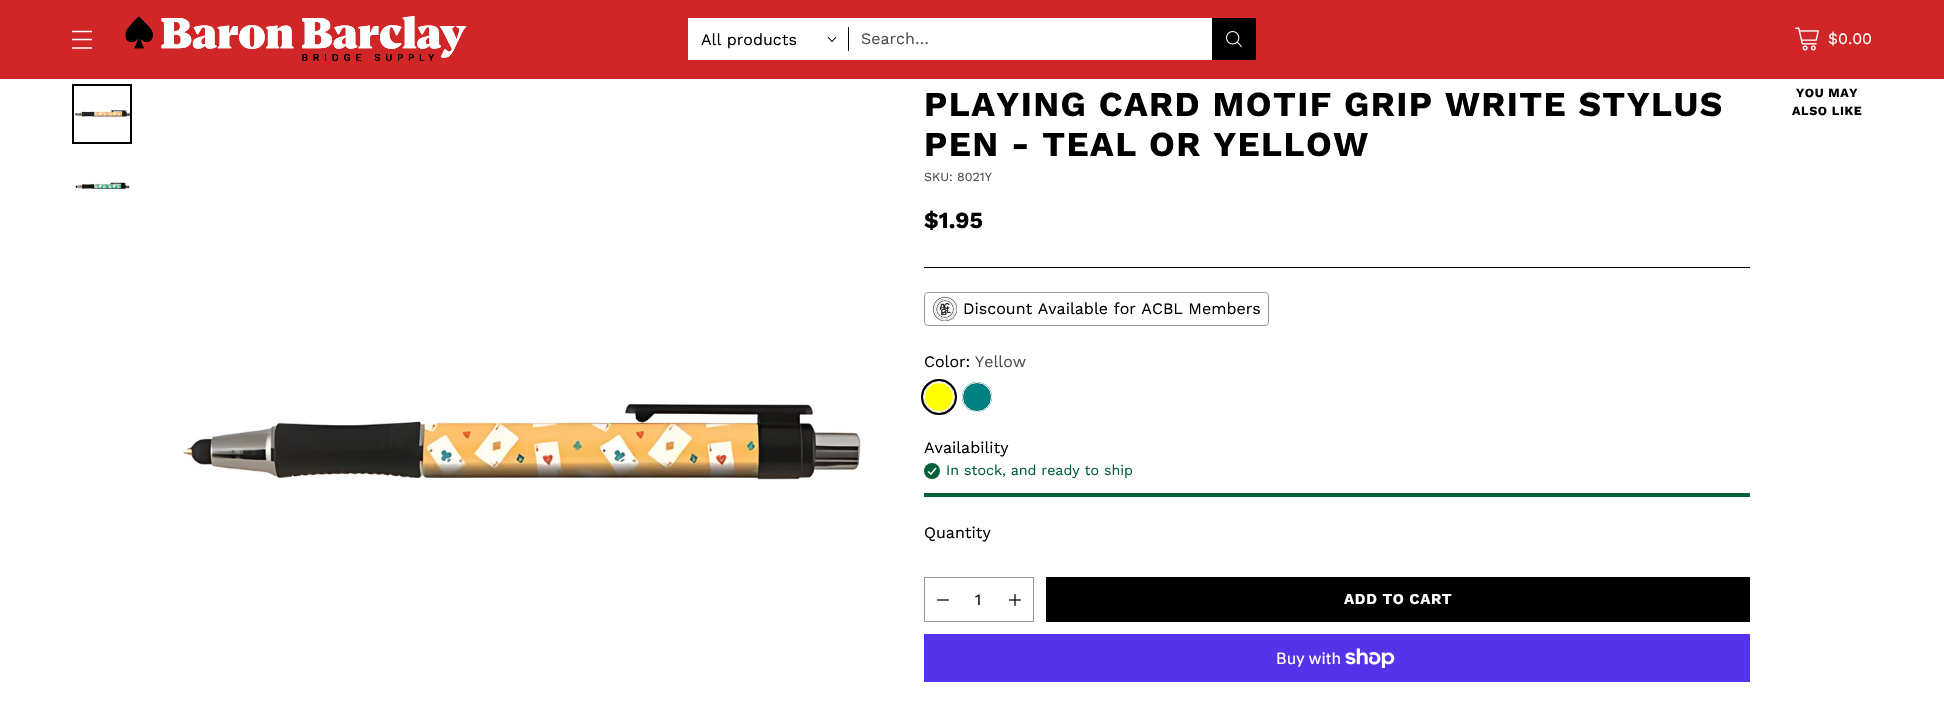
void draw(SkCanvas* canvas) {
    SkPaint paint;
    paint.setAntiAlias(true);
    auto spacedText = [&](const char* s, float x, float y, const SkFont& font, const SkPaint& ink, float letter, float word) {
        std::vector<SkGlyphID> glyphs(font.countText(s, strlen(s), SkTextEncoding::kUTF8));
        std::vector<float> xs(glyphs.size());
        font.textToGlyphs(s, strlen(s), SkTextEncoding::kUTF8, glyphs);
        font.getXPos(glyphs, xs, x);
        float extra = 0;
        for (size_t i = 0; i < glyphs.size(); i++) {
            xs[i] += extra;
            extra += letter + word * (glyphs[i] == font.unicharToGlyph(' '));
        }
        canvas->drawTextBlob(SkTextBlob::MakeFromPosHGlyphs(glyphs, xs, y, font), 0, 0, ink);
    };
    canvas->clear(0xFFFFFFFF);
    paint.setColor(0xFFD12627);
    canvas->drawRect(SkRect::MakeXYWH(0, 0, 1944, 79), paint);
    paint.setStyle(SkPaint::kStroke_Style);
    paint.setStrokeWidth(1.4f);
    paint.setColor(0xFFFFFFFF);
    canvas->drawPath(SkPathBuilder().moveTo(72, 39.5f).lineTo(92, 39.5f).moveTo(72, 31.5f).lineTo(92, 31.5f).moveTo(72, 48).lineTo(92, 48).detach(), paint);
    canvas->drawImageRect(SkImages::DeferredFromEncodedData(SkData::MakeFromFileName("img1.png")), SkRect::MakeXYWH(125, 16, 342, 45), SkSamplingOptions());
    paint.setStyle(SkPaint::kFill_Style);
    canvas->drawRect(SkRect::MakeXYWH(688, 18, 524, 42), paint);
    SkFont font1(fontMgr->matchFamilyStyle("Work Sans", SkFontStyle::Normal()), 16);
    font1.setSubpixel(true);
    paint.setColor(0xFF000000);
    canvas->drawString("All products", 701, 45, font1, paint);
    paint.setStyle(SkPaint::kStroke_Style);
    paint.setStrokeWidth(1.1f);
    canvas->drawPath(SkPathBuilder().moveTo(828, 37).lineTo(832, 41.5f).lineTo(836, 37).detach(), paint);
    paint.setStyle(SkPaint::kFill_Style);
    canvas->drawRect(SkRect::MakeXYWH(848, 27, 1, 24), paint);
    paint.setColor(0xFF4D4D4D);
    canvas->drawString("Search…", 861, 44, font1, paint);
    paint.setColor(0xFF000000);
    canvas->drawRect(SkRect::MakeXYWH(1212, 18, 44, 42), paint);
    canvas->drawImageRect(SkImages::DeferredFromEncodedData(SkData::MakeFromFileName("img2.png")), SkRect::MakeXYWH(1226, 31, 16, 16), SkSamplingOptions());
    canvas->drawImageRect(SkImages::DeferredFromEncodedData(SkData::MakeFromFileName("img3.png")), SkRect::MakeXYWH(1795, 27, 24, 24), SkSamplingOptions());
    paint.setColor(0xFFFFFFFF);
    canvas->drawString("$0.00", 1828, 44, font1, paint);
    canvas->drawImageRect(SkImages::DeferredFromEncodedData(SkData::MakeFromFileName("img4.png")), SkRect::MakeXYWH(75, 108, 55, 10), SkSamplingOptions());
    paint.setStyle(SkPaint::kStroke_Style);
    paint.setStrokeWidth(2);
    paint.setColor(0xFF000000);
    canvas->drawRect(SkRect::MakeXYWH(73, 85, 58, 58), paint);
    canvas->drawImageRect(SkImages::DeferredFromEncodedData(SkData::MakeFromFileName("img5.png")), SkRect::MakeXYWH(74, 181, 56, 9), SkSamplingOptions());
    canvas->drawImageRect(SkImages::DeferredFromEncodedData(SkData::MakeFromFileName("img6.png")), SkRect::MakeXYWH(182, 403, 680, 77), SkSamplingOptions());
    paint.setStyle(SkPaint::kFill_Style);
    canvas->drawRect(SkRect::MakeXYWH(924, 267, 826, 1), paint);
    SkFont font2(fontMgr->matchFamilyStyle("Work Sans", SkFontStyle::Bold()), 35);
    font2.setSubpixel(true);
    spacedText("PLAYING CARD MOTIF GRIP WRITE STYLUS", 924, 116, font2, paint, 1.4f, 0);
    spacedText("PEN - TEAL OR YELLOW", 924, 156, font2, paint, 1.4f, 0);
    SkFont font3(fontMgr->matchFamilyStyle("Work Sans", SkFontStyle::Normal()), 12.5f);
    font3.setSubpixel(true);
    paint.setColor(0xFF4D4D4D);
    canvas->drawString("SKU: 8021Y", 924, 181, font3, paint);
    SkFont font4(fontMgr->matchFamilyStyle("Work Sans", SkFontStyle::Bold()), 23);
    font4.setSubpixel(true);
    paint.setColor(0xFF000000);
    canvas->drawString("$1.95", 924, 228, font4, paint);
    paint.setStyle(SkPaint::kStroke_Style);
    paint.setStrokeWidth(1);
    paint.setColor(0xFF999999);
    canvas->drawRoundRect(SkRect::MakeXYWH(924.5f, 292.5f, 344, 33), 3.5f, 3.5f, paint);
    canvas->drawImageRect(SkImages::DeferredFromEncodedData(SkData::MakeFromFileName("img7.png")), SkRect::MakeXYWH(933, 297, 24, 24), SkSamplingOptions());
    paint.setStyle(SkPaint::kFill_Style);
    paint.setColor(0xFF000000);
    canvas->drawString("Discount Available for ACBL Members", 963, 314, font1, paint);
    canvas->drawString("Color:", 924, 367, font1, paint);
    paint.setColor(0xFF4D4D4D);
    canvas->drawString("Yellow", 975, 367, font1, paint);
    paint.setStyle(SkPaint::kStroke_Style);
    paint.setStrokeWidth(3);
    paint.setColor(0xFF000000);
    canvas->drawCircle(939, 397, 16.5f, paint);
    paint.setStrokeWidth(1);
    paint.setColor(0xFFFFFFFF);
    canvas->drawCircle(939, 397, 15.5f, paint);
    paint.setStyle(SkPaint::kFill_Style);
    paint.setColor(0xFFFFFF00);
    canvas->drawCircle(939, 397, 14.5f, paint);
    paint.setStyle(SkPaint::kStroke_Style);
    paint.setColor(0xFFFFFFFF);
    canvas->drawCircle(939, 397, 14.5f, paint);
    paint.setStyle(SkPaint::kFill_Style);
    paint.setColor(0xFF008080);
    canvas->drawCircle(977, 397, 15, paint);
    paint.setStyle(SkPaint::kStroke_Style);
    paint.setColor(0xFF007373);
    canvas->drawCircle(977, 397, 13.5f, paint);
    paint.setColor(0xFFFFFFFF);
    canvas->drawCircle(977, 397, 14.5f, paint);
    paint.setStyle(SkPaint::kFill_Style);
    paint.setColor(0xFF000000);
    canvas->drawString("Availability", 924, 453, font1, paint);
    paint.setColor(0xFF015F39);
    canvas->drawCircle(932, 471, 8, paint);
    paint.setStyle(SkPaint::kStroke_Style);
    paint.setStrokeWidth(1.5f);
    paint.setColor(0xFFFFFFFF);
    canvas->drawPath(SkPathBuilder().moveTo(928, 471.5f).lineTo(931, 474).lineTo(936, 468).detach(), paint);
    SkFont font5(fontMgr->matchFamilyStyle("Work Sans", SkFontStyle::Normal()), 14.25f);
    font5.setSubpixel(true);
    paint.setStyle(SkPaint::kFill_Style);
    paint.setColor(0xFF015F39);
    canvas->drawString("In stock, and ready to ship", 946, 475, font5, paint);
    canvas->drawRect(SkRect::MakeXYWH(924, 493, 826, 4), paint);
    paint.setColor(0xFF000000);
    canvas->drawString("Quantity", 924, 538, font1, paint);
    paint.setStyle(SkPaint::kStroke_Style);
    paint.setStrokeWidth(1);
    paint.setColor(0xFF999999);
    canvas->drawRect(SkRect::MakeXYWH(924.5f, 577.5f, 109, 44), paint);
    canvas->drawImageRect(SkImages::DeferredFromEncodedData(SkData::MakeFromFileName("img8.png")), SkRect::MakeXYWH(937, 599, 12, 2), SkSamplingOptions());
    paint.setStyle(SkPaint::kFill_Style);
    paint.setColor(0xFF000000);
    canvas->drawString("1", 975, 605, font1, paint);
    canvas->drawImageRect(SkImages::DeferredFromEncodedData(SkData::MakeFromFileName("img9.png")), SkRect::MakeXYWH(1009, 594, 12, 12), SkSamplingOptions());
    canvas->drawRect(SkRect::MakeXYWH(1046, 577, 704, 45), paint);
    SkFont font6(fontMgr->matchFamilyStyle("Work Sans", SkFontStyle::Bold()), 15);
    font6.setSubpixel(true);
    paint.setColor(0xFFFFFFFF);
    spacedText("ADD TO CART", 1344, 604, font6, paint, 0.6f, 0);
    paint.setColor(0xFF5433EB);
    canvas->drawRect(SkRect::MakeXYWH(924, 634, 826, 48), paint);
    SkFont font7(fontMgr->matchFamilyStyle("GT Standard", SkFontStyle::Normal()), 16);
    font7.setSubpixel(true);
    paint.setColor(0xFFFFFFFF);
    canvas->drawString("Buy with", 1276, 664, font7, paint);
    canvas->drawImageRect(SkImages::DeferredFromEncodedData(SkData::MakeFromFileName("img10.png")), SkRect::MakeXYWH(1345, 648, 50, 20), SkSamplingOptions());
    SkFont font8(fontMgr->matchFamilyStyle("Work Sans", SkFontStyle::Bold()), 12.5f);
    font8.setSubpixel(true);
    paint.setColor(0xFF000000);
    spacedText("YOU MAY", 1796, 97, font8, paint, 0.6f, 0);
    spacedText("ALSO LIKE", 1792, 115, font8, paint, 0.6f, 0);
}
